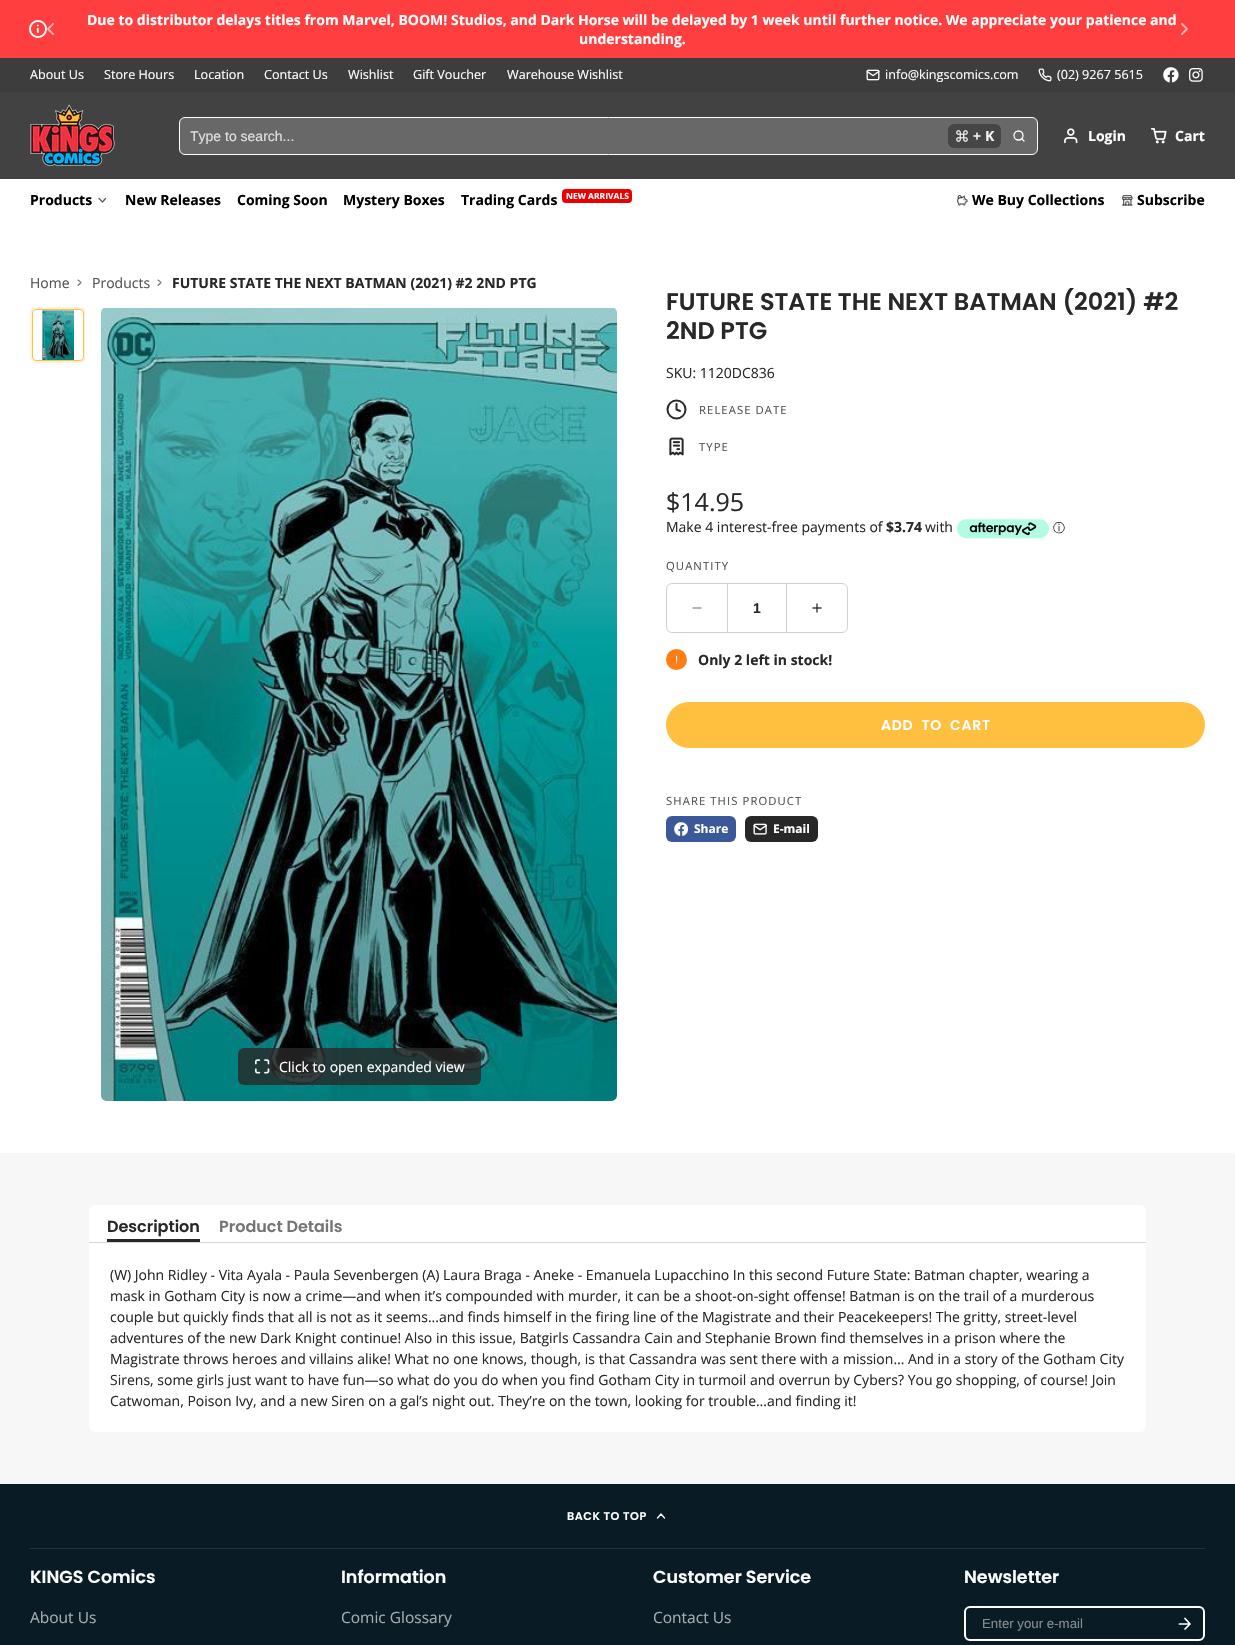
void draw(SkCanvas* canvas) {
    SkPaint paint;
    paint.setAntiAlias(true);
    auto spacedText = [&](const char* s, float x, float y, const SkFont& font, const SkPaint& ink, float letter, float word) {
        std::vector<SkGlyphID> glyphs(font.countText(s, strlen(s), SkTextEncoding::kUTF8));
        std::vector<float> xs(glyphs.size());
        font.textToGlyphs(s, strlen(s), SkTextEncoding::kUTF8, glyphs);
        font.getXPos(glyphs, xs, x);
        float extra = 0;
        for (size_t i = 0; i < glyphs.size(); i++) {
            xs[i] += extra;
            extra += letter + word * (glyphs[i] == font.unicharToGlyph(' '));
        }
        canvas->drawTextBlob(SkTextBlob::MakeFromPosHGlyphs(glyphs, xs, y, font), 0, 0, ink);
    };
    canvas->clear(0xFFF7F7F7);
    paint.setColor(0xFFFF3F3F);
    canvas->drawRect(SkRect::MakeXYWH(0, 0, 1235, 58), paint);
    paint.setStyle(SkPaint::kStroke_Style);
    paint.setStrokeWidth(2);
    paint.setStrokeCap(SkPaint::kRound_Cap);
    paint.setStrokeJoin(SkPaint::kRound_Join);
    paint.setColor(0xFFFFB2B2);
    canvas->drawPath(SkPathBuilder().moveTo(53, 34).lineTo(48, 29).lineTo(53, 24).detach(), paint);
    canvas->drawImageRect(SkImages::DeferredFromEncodedData(SkData::MakeFromFileName("img1.png")), SkRect::MakeXYWH(29, 20, 18, 18), SkSamplingOptions());
    SkFont font1(fontMgr->matchFamilyStyle("Open Sans", SkFontStyle::Bold()), 14);
    font1.setSubpixel(true);
    paint.setStyle(SkPaint::kFill_Style);
    paint.setColor(0xFFFFFFFF);
    canvas->drawString("Due to distributor delays titles from Marvel, BOOM! Studios, and Dark Horse will be delayed by 1 week until further notice. We appreciate your patience and", 87, 25, font1, paint);
    canvas->drawString("understanding.", 579, 44, font1, paint);
    paint.setStyle(SkPaint::kStroke_Style);
    paint.setColor(0xFFFFB2B2);
    canvas->drawPath(SkPathBuilder().moveTo(1182, 34).lineTo(1187, 29).lineTo(1182, 24).detach(), paint);
    paint.setStyle(SkPaint::kFill_Style);
    paint.setColor(0xFF3D3D3D);
    canvas->drawRect(SkRect::MakeXYWH(0, 58, 1235, 34), paint);
    SkFont font2(fontMgr->matchFamilyStyle("Open Sans", SkFontStyle::Normal()), 12.6f);
    font2.setSubpixel(true);
    paint.setColor(0xFFFFFFFF);
    canvas->drawString("About Us", 30, 79, font2, paint);
    canvas->drawString("Store Hours", 104, 79, font2, paint);
    canvas->drawString("Location", 194, 79, font2, paint);
    canvas->drawString("Contact Us", 264, 79, font2, paint);
    canvas->drawString("Wishlist", 348, 79, font2, paint);
    canvas->drawString("Gift Voucher", 413, 79, font2, paint);
    canvas->drawString("Warehouse Wishlist", 507, 79, font2, paint);
    canvas->drawImageRect(SkImages::DeferredFromEncodedData(SkData::MakeFromFileName("img2.png")), SkRect::MakeXYWH(866, 69, 14, 12), SkSamplingOptions());
    canvas->drawString("info@kingscomics.com", 885, 79, font2, paint);
    canvas->drawImageRect(SkImages::DeferredFromEncodedData(SkData::MakeFromFileName("img3.png")), SkRect::MakeXYWH(1038, 68, 14, 14), SkSamplingOptions());
    canvas->drawString("(02) 9267 5615", 1057, 79, font2, paint);
    canvas->drawImageRect(SkImages::DeferredFromEncodedData(SkData::MakeFromFileName("img4.png")), SkRect::MakeXYWH(1163, 67, 16, 16), SkSamplingOptions());
    canvas->drawImageRect(SkImages::DeferredFromEncodedData(SkData::MakeFromFileName("img5.png")), SkRect::MakeXYWH(1189, 68, 14, 14), SkSamplingOptions());
    paint.setColor(0xFF424242);
    canvas->drawRect(SkRect::MakeXYWH(0, 92, 1235, 87), paint);
    canvas->drawImageRect(SkImages::DeferredFromEncodedData(SkData::MakeFromFileName("img6.png")), SkRect::MakeXYWH(30, 104, 85, 62), SkSamplingOptions());
    paint.setColor(0xFF686868);
    canvas->drawRoundRect(SkRect::MakeXYWH(179.5f, 117.5f, 858, 37), 5.5f, 5.5f, paint);
    paint.setStyle(SkPaint::kStroke_Style);
    paint.setStrokeWidth(1);
    paint.setStrokeCap(SkPaint::kButt_Cap);
    paint.setStrokeJoin(SkPaint::kMiter_Join);
    paint.setColor(0xFFFFFFFF);
    canvas->drawRoundRect(SkRect::MakeXYWH(179.5f, 117.5f, 858, 37), 5.5f, 5.5f, paint);
    SkFont font3(fontMgr->matchFamilyStyle("Liberation Sans", SkFontStyle::Normal()), 14);
    font3.setSubpixel(true);
    paint.setStyle(SkPaint::kFill_Style);
    paint.setColor(0xFFE1E1E1);
    canvas->drawString("Type to search...", 190, 141, font3, paint);
    paint.setStyle(SkPaint::kStroke_Style);
    paint.setStrokeWidth(2);
    paint.setColor(0xFF686868);
    canvas->drawPath(SkPathBuilder().moveTo(182, 132).cubicTo(184, 129.5f, 188, 129.5f, 190, 132).moveTo(182, 132).cubicTo(184, 129.5f, 188, 129.5f, 190, 132).moveTo(182, 132).cubicTo(184, 129.5f, 188, 129.5f, 190, 132).detach(), paint);
    paint.setStyle(SkPaint::kFill_Style);
    paint.setColor(0xFF464646);
    canvas->drawRoundRect(SkRect::MakeXYWH(948, 124, 53, 24), 6, 6, paint);
    canvas->drawImageRect(SkImages::DeferredFromEncodedData(SkData::MakeFromFileName("img7.png")), SkRect::MakeXYWH(956, 130, 12, 12), SkSamplingOptions());
    paint.setColor(0xFFF0F0F0);
    canvas->drawString("+", 973, 141, font1, paint);
    canvas->drawString("K", 985, 141, font1, paint);
    paint.setStyle(SkPaint::kStroke_Style);
    paint.setStrokeWidth(1.3f);
    paint.setColor(0xFFFFFFFF);
    canvas->drawCircle(1018.5f, 135.5f, 4.5f, paint);
    paint.setStrokeCap(SkPaint::kRound_Cap);
    paint.setStrokeJoin(SkPaint::kRound_Join);
    canvas->drawPath(SkPathBuilder().moveTo(1024, 141).lineTo(1021.5f, 138.5f).detach(), paint);
    canvas->drawImageRect(SkImages::DeferredFromEncodedData(SkData::MakeFromFileName("img8.png")), SkRect::MakeXYWH(1064, 128, 14, 16), SkSamplingOptions());
    paint.setStyle(SkPaint::kFill_Style);
    canvas->drawString("Login", 1088, 141, font1, paint);
    canvas->drawImageRect(SkImages::DeferredFromEncodedData(SkData::MakeFromFileName("img9.png")), SkRect::MakeXYWH(1151, 128, 16, 16), SkSamplingOptions());
    canvas->drawString("Cart", 1175, 141, font1, paint);
    canvas->drawRect(SkRect::MakeXYWH(0, 179, 1235, 974), paint);
    paint.setColor(0xFF000000);
    canvas->drawString("Products", 30, 205, font1, paint);
    paint.setStyle(SkPaint::kStroke_Style);
    paint.setStrokeWidth(1.2f);
    paint.setColor(0xFF5C5C5C);
    canvas->drawPath(SkPathBuilder().moveTo(99, 198.5f).lineTo(102.5f, 202).lineTo(105.5f, 198.5f).detach(), paint);
    paint.setStyle(SkPaint::kFill_Style);
    paint.setColor(0xFF000000);
    canvas->drawString("New Releases", 125, 205, font1, paint);
    canvas->drawString("Coming Soon", 237, 205, font1, paint);
    canvas->drawString("Mystery Boxes", 343, 205, font1, paint);
    canvas->drawString("Trading Cards", 461, 205, font1, paint);
    paint.setColor(0xFFEC0000);
    canvas->drawRoundRect(SkRect::MakeXYWH(562, 189, 70, 14), 4, 4, paint);
    SkFont font4(fontMgr->matchFamilyStyle("Open Sans", SkFontStyle::Bold()), 8.5f);
    font4.setSubpixel(true);
    paint.setColor(0xFFFFFFFF);
    canvas->drawString("NEW ARRIVALS", 566, 199, font4, paint);
    canvas->drawImageRect(SkImages::DeferredFromEncodedData(SkData::MakeFromFileName("img10.png")), SkRect::MakeXYWH(957, 195, 11, 11), SkSamplingOptions());
    paint.setColor(0xFF000000);
    canvas->drawString("We Buy Collections", 972, 205, font1, paint);
    canvas->drawImageRect(SkImages::DeferredFromEncodedData(SkData::MakeFromFileName("img11.png")), SkRect::MakeXYWH(1122, 195, 11, 11), SkSamplingOptions());
    canvas->drawString("Subscribe", 1137, 205, font1, paint);
    SkFont font5(fontMgr->matchFamilyStyle("Open Sans", SkFontStyle::Normal()), 14);
    font5.setSubpixel(true);
    paint.setColor(0xFF535353);
    canvas->drawString("Home", 30, 288, font5, paint);
    paint.setStyle(SkPaint::kStroke_Style);
    paint.setStrokeWidth(1.1f);
    paint.setColor(0xFF757575);
    canvas->drawPath(SkPathBuilder().moveTo(78, 285.5f).lineTo(81, 282.5f).lineTo(78, 280).detach(), paint);
    paint.setStyle(SkPaint::kFill_Style);
    paint.setColor(0xFF535353);
    canvas->drawString("Products", 92, 288, font5, paint);
    paint.setStyle(SkPaint::kStroke_Style);
    paint.setColor(0xFF757575);
    canvas->drawPath(SkPathBuilder().moveTo(158, 285.5f).lineTo(161, 282.5f).lineTo(158, 280).detach(), paint);
    paint.setStyle(SkPaint::kFill_Style);
    paint.setColor(0xFF282828);
    canvas->drawString("FUTURE STATE THE NEXT BATMAN (2021) #2 2ND PTG", 172, 288, font1, paint);
    canvas->save();
    canvas->clipRect(SkRect::MakeXYWH(30, 307, 55, 794));
    paint.setStyle(SkPaint::kStroke_Style);
    paint.setStrokeWidth(2);
    paint.setStrokeCap(SkPaint::kButt_Cap);
    paint.setStrokeJoin(SkPaint::kMiter_Join);
    paint.setColor(0xFFFFF2D9);
    canvas->drawRoundRect(SkRect::MakeXYWH(31, 308, 54, 54), 5, 5, paint);
    canvas->restore();
    paint.setStrokeWidth(1);
    paint.setColor(0xFFFFBF3F);
    canvas->drawRoundRect(SkRect::MakeXYWH(32.5f, 309.5f, 51, 51), 3.5f, 3.5f, paint);
    canvas->drawImageRect(SkImages::DeferredFromEncodedData(SkData::MakeFromFileName("img12.png")), SkRect::MakeXYWH(42, 310, 32, 50), SkSamplingOptions());
    canvas->drawImageRect(SkImages::DeferredFromEncodedData(SkData::MakeFromFileName("img13.png")), SkRect::MakeXYWH(101, 308, 516, 793), SkSamplingOptions());
    paint.setStyle(SkPaint::kFill_Style);
    paint.setColor(0xCC282828);
    canvas->drawRoundRect(SkRect::MakeXYWH(238, 1048, 243, 37), 6, 6, paint);
    canvas->drawImageRect(SkImages::DeferredFromEncodedData(SkData::MakeFromFileName("img14.png")), SkRect::MakeXYWH(255, 1059, 15, 15), SkSamplingOptions());
    paint.setColor(0xFFFFFFFF);
    canvas->drawString("Click to open expanded view", 279, 1072, font5, paint);
    canvas->save();
    canvas->clipRect(SkRect::MakeXYWH(666, 288, 539, 58));
    SkFont font6(fontMgr->matchFamilyStyle("Poppins", SkFontStyle(600, SkFontStyle::kNormal_Width, SkFontStyle::kUpright_Slant)), 24);
    font6.setSubpixel(true);
    paint.setColor(0xFF282828);
    canvas->drawString("FUTURE STATE THE NEXT BATMAN (2021) #2", 666, 310, font6, paint);
    canvas->restore();
    canvas->drawString("2ND PTG", 666, 339, font6, paint);
    canvas->drawString("SKU: 1120DC836", 666, 378, font5, paint);
    paint.setStyle(SkPaint::kStroke_Style);
    paint.setStrokeWidth(2);
    canvas->drawCircle(676.5f, 409.5f, 9, paint);
    paint.setStrokeCap(SkPaint::kRound_Cap);
    paint.setStrokeJoin(SkPaint::kRound_Join);
    canvas->drawPath(SkPathBuilder().moveTo(676.5f, 404).lineTo(676.5f, 409.5f).lineTo(680, 411).detach(), paint);
    SkFont font7(fontMgr->matchFamilyStyle("Open Sans", SkFontStyle::Normal()), 11.25f);
    font7.setSubpixel(true);
    paint.setStyle(SkPaint::kFill_Style);
    paint.setColor(0xFF535353);
    spacedText("RELEASE DATE", 699, 414, font7, paint, 1.1f, 0);
    canvas->drawImageRect(SkImages::DeferredFromEncodedData(SkData::MakeFromFileName("img15.png")), SkRect::MakeXYWH(669, 437, 15, 19), SkSamplingOptions());
    spacedText("TYPE", 699, 451, font7, paint, 1.1f, 0);
    SkFont font8(fontMgr->matchFamilyStyle("Open Sans", SkFontStyle::Normal()), 25);
    font8.setSubpixel(true);
    paint.setColor(0xFF282828);
    canvas->drawString("$14.95", 666, 511, font8, paint);
    canvas->drawString("Make 4 interest-free payments of", 666, 532, font5, paint);
    canvas->drawString("$3.74", 886, 532, font1, paint);
    canvas->drawString("with", 925, 532, font5, paint);
    canvas->drawImageRect(SkImages::DeferredFromEncodedData(SkData::MakeFromFileName("img16.png")), SkRect::MakeXYWH(957, 519, 92, 20), SkSamplingOptions());
    SkFont font9(fontMgr->matchFamilyStyle("WenQuanYi Zen Hei", SkFontStyle(500, SkFontStyle::kNormal_Width, SkFontStyle::kUpright_Slant)), 12);
    font9.setSubpixel(true);
    canvas->drawString("ⓘ", 1053, 532, font9, paint);
    paint.setColor(0xFF535353);
    spacedText("QUANTITY", 666, 570, font7, paint, 1.1f, 0);
    paint.setStyle(SkPaint::kStroke_Style);
    paint.setStrokeWidth(1);
    paint.setStrokeCap(SkPaint::kButt_Cap);
    paint.setStrokeJoin(SkPaint::kMiter_Join);
    paint.setColor(0xFFD1D1D1);
    canvas->drawRoundRect(SkRect::MakeXYWH(666.5f, 583.5f, 181, 49), 5.5f, 5.5f, paint);
    paint.setStrokeWidth(1.3f);
    paint.setStrokeCap(SkPaint::kRound_Cap);
    paint.setStrokeJoin(SkPaint::kRound_Join);
    paint.setColor(0xFF9C9C9C);
    canvas->drawPath(SkPathBuilder().moveTo(693, 608).lineTo(701, 608).detach(), paint);
    paint.setStyle(SkPaint::kFill_Style);
    paint.setColor(0xFFD1D1D1);
    canvas->drawRect(SkRect::MakeXYWH(786, 584, 1, 48), paint);
    canvas->drawRect(SkRect::MakeXYWH(727, 584, 1, 48), paint);
    SkFont font10(fontMgr->matchFamilyStyle("Liberation Sans", SkFontStyle::Bold()), 14);
    font10.setSubpixel(true);
    paint.setColor(0xFF282828);
    canvas->drawString("1", 753, 613, font10, paint);
    canvas->drawImageRect(SkImages::DeferredFromEncodedData(SkData::MakeFromFileName("img17.png")), SkRect::MakeXYWH(812, 603, 10, 10), SkSamplingOptions());
    paint.setColor(0xFFFD7E14);
    canvas->drawCircle(676.5f, 659.5f, 10.5f, paint);
    canvas->drawImageRect(SkImages::DeferredFromEncodedData(SkData::MakeFromFileName("img18.png")), SkRect::MakeXYWH(676, 655, 2, 9), SkSamplingOptions());
    paint.setColor(0xFF282828);
    canvas->drawString("Only 2 left in stock!", 698, 665, font1, paint);
    paint.setColor(0xFFFFBF3F);
    canvas->drawRoundRect(SkRect::MakeXYWH(666, 702, 539, 46), 23, 23, paint);
    SkFont font11(fontMgr->matchFamilyStyle("Poppins", SkFontStyle(600, SkFontStyle::kNormal_Width, SkFontStyle::kUpright_Slant)), 14);
    font11.setSubpixel(true);
    paint.setColor(0xFFFFFFFF);
    spacedText("ADD TO CART", 881, 730, font11, paint, 0.75f, 4);
    paint.setColor(0xFF535353);
    spacedText("SHARE THIS PRODUCT", 666, 805, font7, paint, 1.1f, 0);
    paint.setColor(0xFF3B5998);
    canvas->drawRoundRect(SkRect::MakeXYWH(666, 816, 70, 26), 6, 6, paint);
    canvas->drawImageRect(SkImages::DeferredFromEncodedData(SkData::MakeFromFileName("img19.png")), SkRect::MakeXYWH(674, 822, 14, 14), SkSamplingOptions());
    SkFont font12(fontMgr->matchFamilyStyle("Open Sans", SkFontStyle::Bold()), 12);
    font12.setSubpixel(true);
    paint.setColor(0xFFFFFFFF);
    canvas->drawString("Share", 694, 833, font12, paint);
    paint.setColor(0xFF282828);
    canvas->drawRoundRect(SkRect::MakeXYWH(745, 816, 73, 26), 6, 6, paint);
    canvas->drawImageRect(SkImages::DeferredFromEncodedData(SkData::MakeFromFileName("img20.png")), SkRect::MakeXYWH(753, 823, 14, 12), SkSamplingOptions());
    paint.setColor(0xFFFFFFFF);
    canvas->drawString("E-mail", 773, 833, font12, paint);
    canvas->drawRoundRect(SkRect::MakeXYWH(89, 1205, 1057, 227), 6, 6, paint);
    paint.setColor(0xFFD4D4D4);
    canvas->drawRect(SkRect::MakeXYWH(89, 1242, 1057, 1), paint);
    paint.setColor(0xFF282828);
    canvas->drawRect(SkRect::MakeXYWH(107, 1239, 93, 3), paint);
    SkFont font13(fontMgr->matchFamilyStyle("Poppins", SkFontStyle(600, SkFontStyle::kNormal_Width, SkFontStyle::kUpright_Slant)), 16);
    font13.setSubpixel(true);
    canvas->drawString("Description", 107, 1232, font13, paint);
    paint.setColor(0xFF757575);
    canvas->drawString("Product Details", 219, 1232, font13, paint);
    paint.setColor(0xFF282828);
    canvas->drawString("(W) John Ridley - Vita Ayala - Paula Sevenbergen (A) Laura Braga - Aneke - Emanuela Lupacchino In this second Future State: Batman chapter, wearing a", 110, 1280, font5, paint);
    canvas->drawString("mask in Gotham City is now a crime—and when it’s compounded with murder, it can be a shoot-on-sight offense! Batman is on the trail of a murderous", 110, 1301, font5, paint);
    canvas->drawString("couple but quickly finds that all is not as it seems...and finds himself in the firing line of the Magistrate and their Peacekeepers! The gritty, street-level", 110, 1322, font5, paint);
    canvas->drawString("adventures of the new Dark Knight continue! Also in this issue, Batgirls Cassandra Cain and Stephanie Brown find themselves in a prison where the", 110, 1343, font5, paint);
    canvas->drawString("Magistrate throws heroes and villains alike! What no one knows, though, is that Cassandra was sent there with a mission… And in a story of the Gotham City", 110, 1364, font5, paint);
    canvas->drawString("Sirens, some girls just want to have fun—so what do you do when you find Gotham City in turmoil and overrun by Cybers? You go shopping, of course! Join", 110, 1385, font5, paint);
    canvas->drawString("Catwoman, Poison Ivy, and a new Siren on a gal’s night out. They’re on the town, looking for trouble…and finding it!", 110, 1406, font5, paint);
    paint.setColor(0xFF091C25);
    canvas->drawRect(SkRect::MakeXYWH(0, 1484, 1235, 161), paint);
    SkFont font14(fontMgr->matchFamilyStyle("Poppins", SkFontStyle(600, SkFontStyle::kNormal_Width, SkFontStyle::kUpright_Slant)), 11.25f);
    font14.setSubpixel(true);
    paint.setColor(0xFFFFFFFF);
    spacedText("BACK TO TOP", 567, 1520, font14, paint, 0.5f, 0);
    paint.setStyle(SkPaint::kStroke_Style);
    canvas->drawPath(SkPathBuilder().moveTo(664.5f, 1518).lineTo(661, 1514).lineTo(657.5f, 1518).detach(), paint);
    paint.setStyle(SkPaint::kFill_Style);
    paint.setColor(0xFF22333B);
    canvas->drawRect(SkRect::MakeXYWH(30, 1548, 1175, 1), paint);
    SkFont font15(fontMgr->matchFamilyStyle("Poppins", SkFontStyle(600, SkFontStyle::kNormal_Width, SkFontStyle::kUpright_Slant)), 17.5f);
    font15.setSubpixel(true);
    paint.setColor(0xFFFFFFFF);
    canvas->drawString("KINGS Comics", 30, 1583, font15, paint);
    SkFont font16(fontMgr->matchFamilyStyle("Open Sans", SkFontStyle::Normal()), 15.5f);
    font16.setSubpixel(true);
    paint.setColor(0xFFA6ADB1);
    canvas->drawString("About Us", 30, 1623, font16, paint);
    paint.setColor(0xFFFFFFFF);
    canvas->drawString("Information", 341, 1583, font15, paint);
    paint.setColor(0xFFA6ADB1);
    canvas->drawString("Comic Glossary", 341, 1623, font16, paint);
    paint.setColor(0xFFFFFFFF);
    canvas->drawString("Customer Service", 653, 1583, font15, paint);
    paint.setColor(0xFFA6ADB1);
    canvas->drawString("Contact Us", 653, 1623, font16, paint);
    paint.setColor(0xFFFFFFFF);
    canvas->drawString("Newsletter", 964, 1583, font15, paint);
    paint.setStyle(SkPaint::kStroke_Style);
    paint.setStrokeWidth(2);
    paint.setStrokeCap(SkPaint::kButt_Cap);
    paint.setStrokeJoin(SkPaint::kMiter_Join);
    canvas->drawRoundRect(SkRect::MakeXYWH(965, 1607, 239, 33), 5, 5, paint);
    SkFont font17(fontMgr->matchFamilyStyle("Liberation Sans", SkFontStyle::Normal()), 13.25f);
    font17.setSubpixel(true);
    paint.setStyle(SkPaint::kFill_Style);
    paint.setColor(0xFF848E92);
    canvas->drawString("Enter your e-mail", 982, 1628, font17, paint);
    paint.setStyle(SkPaint::kStroke_Style);
    paint.setStrokeWidth(1.7f);
    paint.setStrokeCap(SkPaint::kRound_Cap);
    paint.setStrokeJoin(SkPaint::kRound_Join);
    paint.setColor(0xFFFFFFFF);
    canvas->drawPath(SkPathBuilder().moveTo(1179.5f, 1624).lineTo(1189, 1624).moveTo(1185, 1618.5f).lineTo(1190, 1624).lineTo(1185, 1629).detach(), paint);
}
